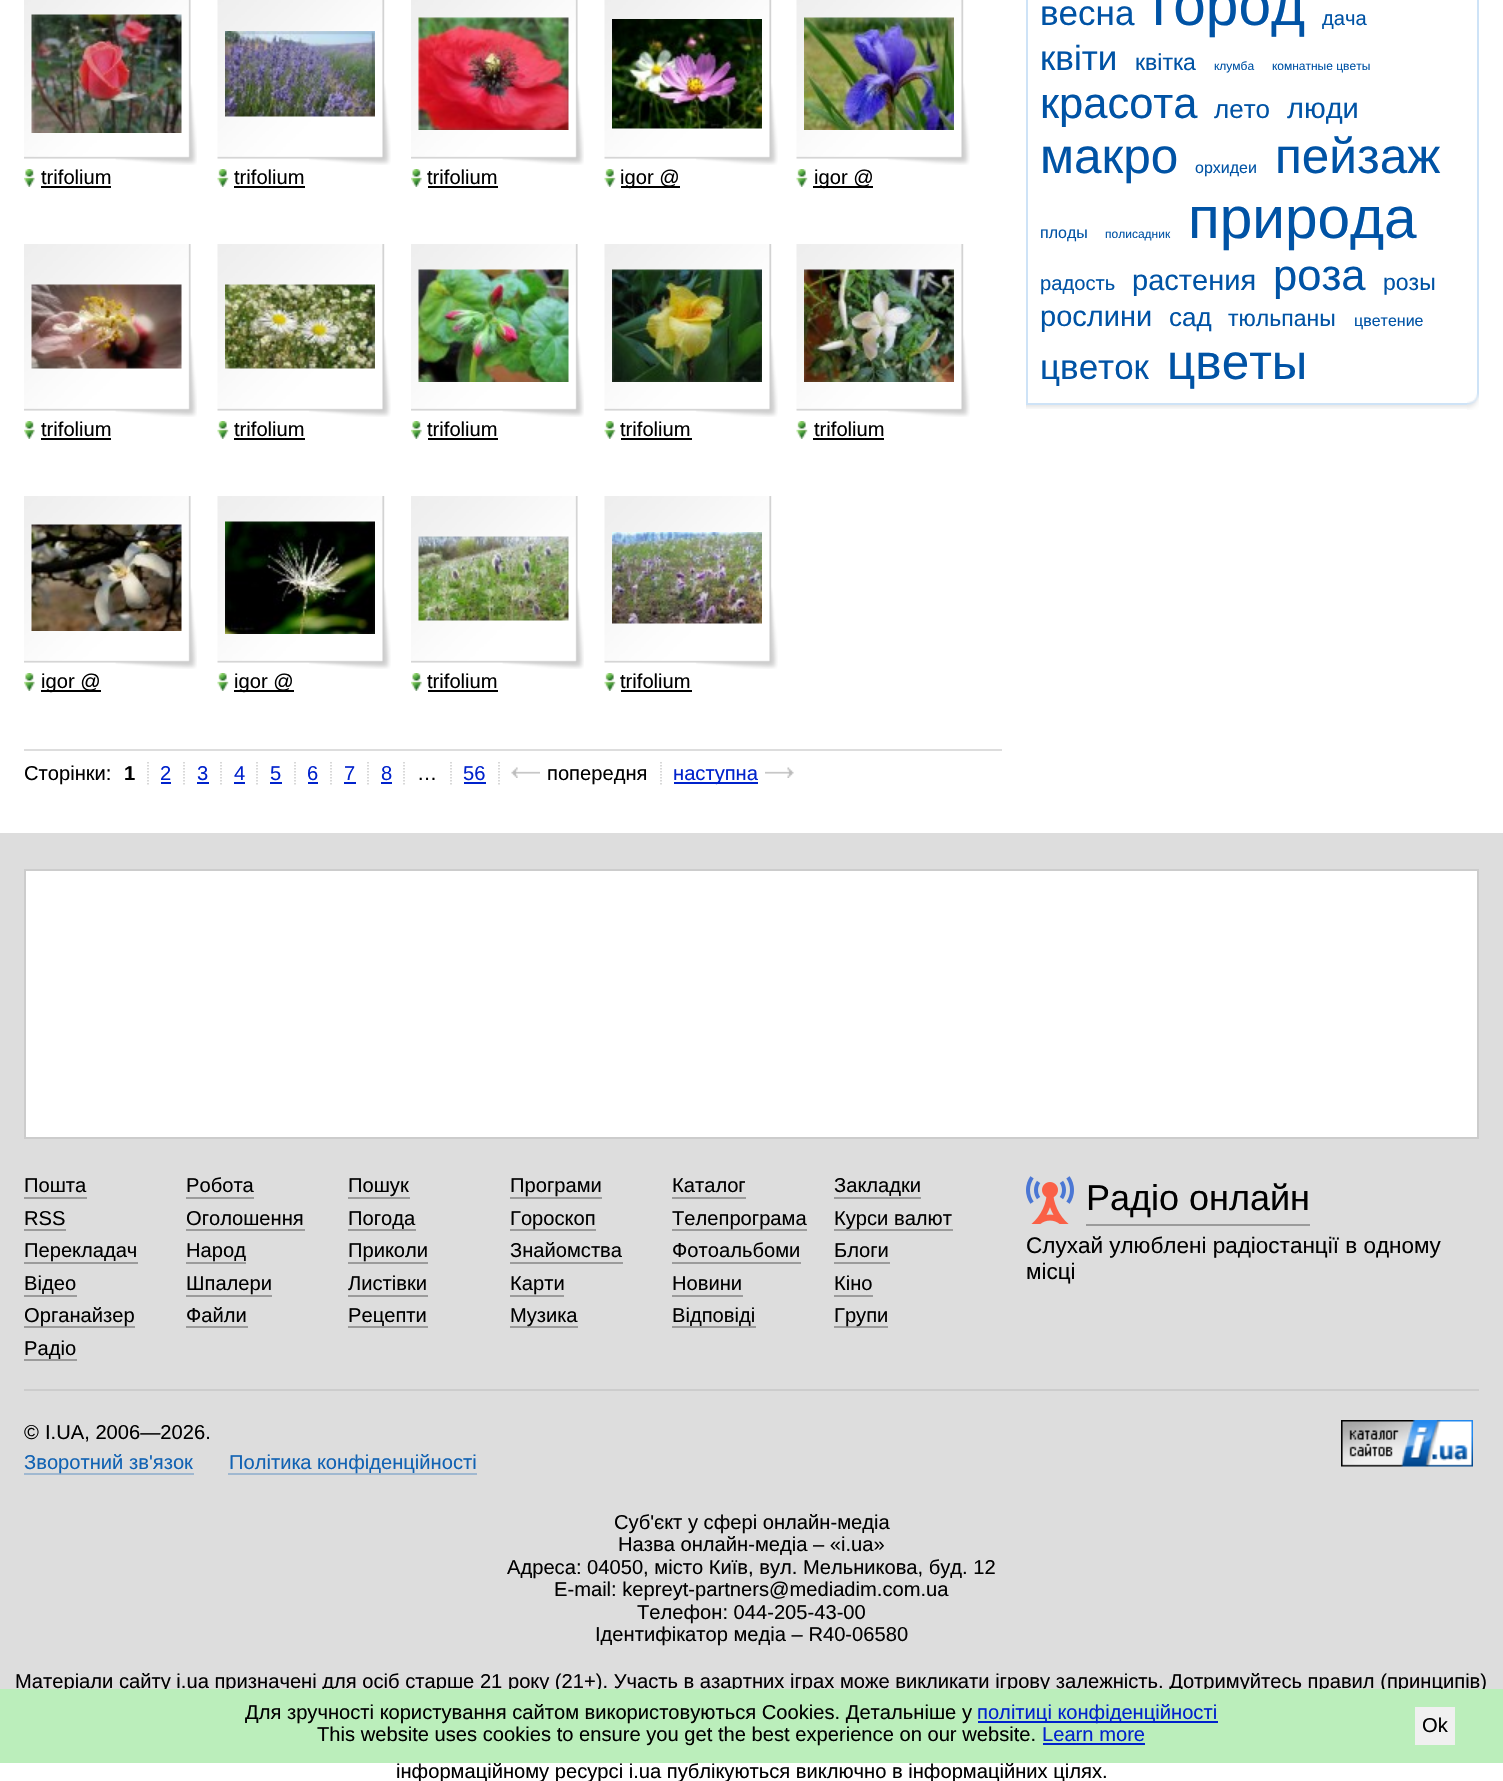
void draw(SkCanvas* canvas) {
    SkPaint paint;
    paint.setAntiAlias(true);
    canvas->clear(0xFFFFFFFF);
    canvas->drawImageRect(SkImages::DeferredFromEncodedData(SkData::MakeFromFileName("img1.png")), SkRect::MakeXYWH(24, 0, 173, 165), SkSamplingOptions());
    canvas->drawImageRect(SkImages::DeferredFromEncodedData(SkData::MakeFromFileName("img2.png")), SkRect::MakeXYWH(31, 14, 151, 119), SkSamplingOptions());
    canvas->drawImageRect(SkImages::DeferredFromEncodedData(SkData::MakeFromFileName("img3.png")), SkRect::MakeXYWH(24, 169, 11, 18), SkSamplingOptions());
    SkFont font1(fontMgr->matchFamilyStyle("Liberation Sans", SkFontStyle::Normal()), 20.15f);
    font1.setSubpixel(true);
    paint.setColor(0xFF000000);
    canvas->drawString("trifolium", 41, 184, font1, paint);
    canvas->drawRect(SkRect::MakeXYWH(41, 186, 70, 2), paint);
    canvas->drawImageRect(SkImages::DeferredFromEncodedData(SkData::MakeFromFileName("img4.png")), SkRect::MakeXYWH(217, 0, 174, 165), SkSamplingOptions());
    canvas->drawImageRect(SkImages::DeferredFromEncodedData(SkData::MakeFromFileName("img5.png")), SkRect::MakeXYWH(225, 31, 150, 86), SkSamplingOptions());
    canvas->drawImageRect(SkImages::DeferredFromEncodedData(SkData::MakeFromFileName("img6.png")), SkRect::MakeXYWH(217, 169, 12, 18), SkSamplingOptions());
    canvas->drawString("trifolium", 234, 184, font1, paint);
    canvas->drawRect(SkRect::MakeXYWH(234, 186, 71, 2), paint);
    canvas->drawImageRect(SkImages::DeferredFromEncodedData(SkData::MakeFromFileName("img7.png")), SkRect::MakeXYWH(411, 0, 173, 165), SkSamplingOptions());
    canvas->drawImageRect(SkImages::DeferredFromEncodedData(SkData::MakeFromFileName("img8.png")), SkRect::MakeXYWH(418, 17, 151, 113), SkSamplingOptions());
    canvas->drawImageRect(SkImages::DeferredFromEncodedData(SkData::MakeFromFileName("img9.png")), SkRect::MakeXYWH(411, 169, 11, 18), SkSamplingOptions());
    canvas->drawString("trifolium", 427, 184, font1, paint);
    canvas->drawRect(SkRect::MakeXYWH(428, 186, 70, 2), paint);
    canvas->drawImageRect(SkImages::DeferredFromEncodedData(SkData::MakeFromFileName("img10.png")), SkRect::MakeXYWH(604, 0, 174, 165), SkSamplingOptions());
    canvas->drawImageRect(SkImages::DeferredFromEncodedData(SkData::MakeFromFileName("img11.png")), SkRect::MakeXYWH(612, 19, 150, 110), SkSamplingOptions());
    canvas->drawImageRect(SkImages::DeferredFromEncodedData(SkData::MakeFromFileName("img12.png")), SkRect::MakeXYWH(604, 169, 12, 18), SkSamplingOptions());
    canvas->drawRect(SkRect::MakeXYWH(621, 186, 59, 2), paint);
    canvas->drawString("igor @", 620, 184, font1, paint);
    canvas->drawImageRect(SkImages::DeferredFromEncodedData(SkData::MakeFromFileName("img4.png")), SkRect::MakeXYWH(796, 0, 174, 165), SkSamplingOptions());
    canvas->drawImageRect(SkImages::DeferredFromEncodedData(SkData::MakeFromFileName("img13.png")), SkRect::MakeXYWH(804, 17, 150, 113), SkSamplingOptions());
    canvas->drawImageRect(SkImages::DeferredFromEncodedData(SkData::MakeFromFileName("img6.png")), SkRect::MakeXYWH(796, 169, 12, 18), SkSamplingOptions());
    canvas->drawRect(SkRect::MakeXYWH(813, 186, 60, 2), paint);
    canvas->drawString("igor @", 814, 184, font1, paint);
    canvas->drawImageRect(SkImages::DeferredFromEncodedData(SkData::MakeFromFileName("img14.png")), SkRect::MakeXYWH(24, 244, 173, 173), SkSamplingOptions());
    canvas->drawImageRect(SkImages::DeferredFromEncodedData(SkData::MakeFromFileName("img15.png")), SkRect::MakeXYWH(31, 284, 151, 85), SkSamplingOptions());
    canvas->drawImageRect(SkImages::DeferredFromEncodedData(SkData::MakeFromFileName("img3.png")), SkRect::MakeXYWH(24, 421, 11, 18), SkSamplingOptions());
    canvas->drawString("trifolium", 41, 436, font1, paint);
    canvas->drawRect(SkRect::MakeXYWH(41, 438, 70, 2), paint);
    canvas->drawImageRect(SkImages::DeferredFromEncodedData(SkData::MakeFromFileName("img16.png")), SkRect::MakeXYWH(217, 244, 174, 173), SkSamplingOptions());
    canvas->drawImageRect(SkImages::DeferredFromEncodedData(SkData::MakeFromFileName("img17.png")), SkRect::MakeXYWH(225, 284, 150, 85), SkSamplingOptions());
    canvas->drawImageRect(SkImages::DeferredFromEncodedData(SkData::MakeFromFileName("img6.png")), SkRect::MakeXYWH(217, 421, 12, 18), SkSamplingOptions());
    canvas->drawString("trifolium", 234, 436, font1, paint);
    canvas->drawRect(SkRect::MakeXYWH(234, 438, 71, 2), paint);
    canvas->drawImageRect(SkImages::DeferredFromEncodedData(SkData::MakeFromFileName("img18.png")), SkRect::MakeXYWH(411, 244, 173, 173), SkSamplingOptions());
    canvas->drawImageRect(SkImages::DeferredFromEncodedData(SkData::MakeFromFileName("img19.png")), SkRect::MakeXYWH(418, 269, 151, 113), SkSamplingOptions());
    canvas->drawImageRect(SkImages::DeferredFromEncodedData(SkData::MakeFromFileName("img9.png")), SkRect::MakeXYWH(411, 421, 11, 18), SkSamplingOptions());
    canvas->drawString("trifolium", 427, 436, font1, paint);
    canvas->drawRect(SkRect::MakeXYWH(428, 438, 70, 2), paint);
    canvas->drawImageRect(SkImages::DeferredFromEncodedData(SkData::MakeFromFileName("img20.png")), SkRect::MakeXYWH(604, 244, 174, 173), SkSamplingOptions());
    canvas->drawImageRect(SkImages::DeferredFromEncodedData(SkData::MakeFromFileName("img21.png")), SkRect::MakeXYWH(612, 269, 150, 113), SkSamplingOptions());
    canvas->drawImageRect(SkImages::DeferredFromEncodedData(SkData::MakeFromFileName("img12.png")), SkRect::MakeXYWH(604, 421, 12, 18), SkSamplingOptions());
    canvas->drawString("trifolium", 620, 436, font1, paint);
    canvas->drawRect(SkRect::MakeXYWH(621, 438, 71, 2), paint);
    canvas->drawImageRect(SkImages::DeferredFromEncodedData(SkData::MakeFromFileName("img16.png")), SkRect::MakeXYWH(796, 244, 174, 173), SkSamplingOptions());
    canvas->drawImageRect(SkImages::DeferredFromEncodedData(SkData::MakeFromFileName("img22.png")), SkRect::MakeXYWH(804, 269, 150, 113), SkSamplingOptions());
    canvas->drawImageRect(SkImages::DeferredFromEncodedData(SkData::MakeFromFileName("img6.png")), SkRect::MakeXYWH(796, 421, 12, 18), SkSamplingOptions());
    canvas->drawString("trifolium", 814, 436, font1, paint);
    canvas->drawRect(SkRect::MakeXYWH(813, 438, 71, 2), paint);
    canvas->drawImageRect(SkImages::DeferredFromEncodedData(SkData::MakeFromFileName("img14.png")), SkRect::MakeXYWH(24, 496, 173, 173), SkSamplingOptions());
    canvas->drawImageRect(SkImages::DeferredFromEncodedData(SkData::MakeFromFileName("img23.png")), SkRect::MakeXYWH(31, 524, 151, 107), SkSamplingOptions());
    canvas->drawImageRect(SkImages::DeferredFromEncodedData(SkData::MakeFromFileName("img3.png")), SkRect::MakeXYWH(24, 673, 11, 18), SkSamplingOptions());
    canvas->drawRect(SkRect::MakeXYWH(41, 690, 60, 2), paint);
    canvas->drawString("igor @", 41, 688, font1, paint);
    canvas->drawImageRect(SkImages::DeferredFromEncodedData(SkData::MakeFromFileName("img16.png")), SkRect::MakeXYWH(217, 496, 174, 173), SkSamplingOptions());
    canvas->drawImageRect(SkImages::DeferredFromEncodedData(SkData::MakeFromFileName("img24.png")), SkRect::MakeXYWH(225, 521, 150, 113), SkSamplingOptions());
    canvas->drawImageRect(SkImages::DeferredFromEncodedData(SkData::MakeFromFileName("img6.png")), SkRect::MakeXYWH(217, 673, 12, 18), SkSamplingOptions());
    canvas->drawRect(SkRect::MakeXYWH(234, 690, 60, 2), paint);
    canvas->drawString("igor @", 234, 688, font1, paint);
    canvas->drawImageRect(SkImages::DeferredFromEncodedData(SkData::MakeFromFileName("img18.png")), SkRect::MakeXYWH(411, 496, 173, 173), SkSamplingOptions());
    canvas->drawImageRect(SkImages::DeferredFromEncodedData(SkData::MakeFromFileName("img25.png")), SkRect::MakeXYWH(418, 536, 151, 85), SkSamplingOptions());
    canvas->drawImageRect(SkImages::DeferredFromEncodedData(SkData::MakeFromFileName("img9.png")), SkRect::MakeXYWH(411, 673, 11, 18), SkSamplingOptions());
    canvas->drawString("trifolium", 427, 688, font1, paint);
    canvas->drawRect(SkRect::MakeXYWH(428, 690, 70, 2), paint);
    canvas->drawImageRect(SkImages::DeferredFromEncodedData(SkData::MakeFromFileName("img20.png")), SkRect::MakeXYWH(604, 496, 174, 173), SkSamplingOptions());
    canvas->drawImageRect(SkImages::DeferredFromEncodedData(SkData::MakeFromFileName("img26.png")), SkRect::MakeXYWH(612, 532, 150, 92), SkSamplingOptions());
    canvas->drawImageRect(SkImages::DeferredFromEncodedData(SkData::MakeFromFileName("img12.png")), SkRect::MakeXYWH(604, 673, 12, 18), SkSamplingOptions());
    canvas->drawString("trifolium", 620, 688, font1, paint);
    canvas->drawRect(SkRect::MakeXYWH(621, 690, 71, 2), paint);
    paint.setColor(0xFFDDDDDD);
    canvas->drawRect(SkRect::MakeXYWH(24, 749, 978, 2), paint);
    paint.setColor(0xFF000000);
    canvas->drawString("Сторінки:", 24, 780, font1, paint);
    paint.setStyle(SkPaint::kStroke_Style);
    paint.setStrokeWidth(1.5f);
    paint.setColor(0xFFCCCCCC);
    paint.setPathEffect(SkDashPathEffect::Make({{1.5f, 1.5f}}, 0));
    canvas->drawPath(SkPathBuilder().moveTo(148, 762).lineTo(148, 784.5f).detach(), paint);
    paint.setPathEffect(nullptr);
    SkFont font2(fontMgr->matchFamilyStyle("Liberation Sans", SkFontStyle::Bold()), 20.15f);
    font2.setSubpixel(true);
    paint.setStyle(SkPaint::kFill_Style);
    paint.setColor(0xFF000000);
    canvas->drawString("1", 124, 780, font2, paint);
    paint.setStyle(SkPaint::kStroke_Style);
    paint.setColor(0xFFCCCCCC);
    paint.setPathEffect(SkDashPathEffect::Make({{1.5f, 1.5f}}, 0));
    canvas->drawPath(SkPathBuilder().moveTo(184, 762).lineTo(184, 784.5f).detach(), paint);
    paint.setPathEffect(nullptr);
    paint.setStyle(SkPaint::kFill_Style);
    paint.setColor(0xFF0022CC);
    canvas->drawString("2", 160, 780, font1, paint);
    canvas->drawRect(SkRect::MakeXYWH(161, 782, 10, 2), paint);
    paint.setStyle(SkPaint::kStroke_Style);
    paint.setColor(0xFFCCCCCC);
    paint.setPathEffect(SkDashPathEffect::Make({{1.5f, 1.5f}}, 0));
    canvas->drawPath(SkPathBuilder().moveTo(221, 762).lineTo(221, 784.5f).detach(), paint);
    paint.setPathEffect(nullptr);
    paint.setStyle(SkPaint::kFill_Style);
    paint.setColor(0xFF0022CC);
    canvas->drawString("3", 197, 780, font1, paint);
    canvas->drawRect(SkRect::MakeXYWH(197, 782, 12, 2), paint);
    paint.setStyle(SkPaint::kStroke_Style);
    paint.setColor(0xFFCCCCCC);
    paint.setPathEffect(SkDashPathEffect::Make({{1.5f, 1.5f}}, 0));
    canvas->drawPath(SkPathBuilder().moveTo(257, 762).lineTo(257, 784.5f).detach(), paint);
    paint.setPathEffect(nullptr);
    paint.setStyle(SkPaint::kFill_Style);
    paint.setColor(0xFF0022CC);
    canvas->drawString("4", 234, 780, font1, paint);
    canvas->drawRect(SkRect::MakeXYWH(234, 782, 11, 2), paint);
    paint.setStyle(SkPaint::kStroke_Style);
    paint.setColor(0xFFCCCCCC);
    paint.setPathEffect(SkDashPathEffect::Make({{1.5f, 1.5f}}, 0));
    canvas->drawPath(SkPathBuilder().moveTo(295, 762).lineTo(295, 784.5f).detach(), paint);
    paint.setPathEffect(nullptr);
    paint.setStyle(SkPaint::kFill_Style);
    paint.setColor(0xFF0022CC);
    canvas->drawString("5", 270, 780, font1, paint);
    canvas->drawRect(SkRect::MakeXYWH(270, 782, 12, 2), paint);
    paint.setStyle(SkPaint::kStroke_Style);
    paint.setColor(0xFFCCCCCC);
    paint.setPathEffect(SkDashPathEffect::Make({{1.5f, 1.5f}}, 0));
    canvas->drawPath(SkPathBuilder().moveTo(331, 762).lineTo(331, 784.5f).detach(), paint);
    paint.setPathEffect(nullptr);
    paint.setStyle(SkPaint::kFill_Style);
    paint.setColor(0xFF0022CC);
    canvas->drawString("6", 307, 780, font1, paint);
    canvas->drawRect(SkRect::MakeXYWH(308, 782, 10, 2), paint);
    paint.setStyle(SkPaint::kStroke_Style);
    paint.setColor(0xFFCCCCCC);
    paint.setPathEffect(SkDashPathEffect::Make({{1.5f, 1.5f}}, 0));
    canvas->drawPath(SkPathBuilder().moveTo(368, 762).lineTo(368, 784.5f).detach(), paint);
    paint.setPathEffect(nullptr);
    paint.setStyle(SkPaint::kFill_Style);
    paint.setColor(0xFF0022CC);
    canvas->drawString("7", 344, 780, font1, paint);
    canvas->drawRect(SkRect::MakeXYWH(344, 782, 12, 2), paint);
    paint.setStyle(SkPaint::kStroke_Style);
    paint.setColor(0xFFCCCCCC);
    paint.setPathEffect(SkDashPathEffect::Make({{1.5f, 1.5f}}, 0));
    canvas->drawPath(SkPathBuilder().moveTo(404, 762).lineTo(404, 784.5f).detach(), paint);
    paint.setPathEffect(nullptr);
    paint.setStyle(SkPaint::kFill_Style);
    paint.setColor(0xFF0022CC);
    canvas->drawString("8", 381, 780, font1, paint);
    canvas->drawRect(SkRect::MakeXYWH(381, 782, 11, 2), paint);
    paint.setStyle(SkPaint::kStroke_Style);
    paint.setColor(0xFFCCCCCC);
    paint.setPathEffect(SkDashPathEffect::Make({{1.5f, 1.5f}}, 0));
    canvas->drawPath(SkPathBuilder().moveTo(451, 762).lineTo(451, 784.5f).detach(), paint);
    paint.setPathEffect(nullptr);
    paint.setStyle(SkPaint::kFill_Style);
    paint.setColor(0xFF000000);
    canvas->drawString("…", 417, 780, font1, paint);
    paint.setStyle(SkPaint::kStroke_Style);
    paint.setColor(0xFFCCCCCC);
    paint.setPathEffect(SkDashPathEffect::Make({{1.5f, 1.5f}}, 0));
    canvas->drawPath(SkPathBuilder().moveTo(499, 762).lineTo(499, 784.5f).detach(), paint);
    paint.setPathEffect(nullptr);
    paint.setStyle(SkPaint::kFill_Style);
    paint.setColor(0xFF0022CC);
    canvas->drawString("56", 463, 780, font1, paint);
    canvas->drawRect(SkRect::MakeXYWH(464, 782, 22, 2), paint);
    paint.setStyle(SkPaint::kStroke_Style);
    paint.setColor(0xFFCCCCCC);
    paint.setPathEffect(SkDashPathEffect::Make({{1.5f, 1.5f}}, 0));
    canvas->drawPath(SkPathBuilder().moveTo(661, 762).lineTo(661, 784.5f).detach(), paint);
    paint.setPathEffect(nullptr);
    canvas->drawImageRect(SkImages::DeferredFromEncodedData(SkData::MakeFromFileName("img27.png")), SkRect::MakeXYWH(511, 767, 29, 11), SkSamplingOptions());
    paint.setStyle(SkPaint::kFill_Style);
    paint.setColor(0xFF000000);
    canvas->drawString("попередня", 547, 780, font1, paint);
    paint.setColor(0xFF0022CC);
    canvas->drawRect(SkRect::MakeXYWH(674, 782, 84, 2), paint);
    canvas->drawString("наступна", 673, 780, font1, paint);
    canvas->drawImageRect(SkImages::DeferredFromEncodedData(SkData::MakeFromFileName("img28.png")), SkRect::MakeXYWH(765, 767, 29, 11), SkSamplingOptions());
    canvas->drawImageRect(SkImages::DeferredFromEncodedData(SkData::MakeFromFileName("img29.png")), SkRect::MakeXYWH(1026, 405, 441, 4), SkSamplingOptions());
    paint.setStyle(SkPaint::kStroke_Style);
    paint.setStrokeWidth(2);
    paint.setColor(0xFFCEE3F7);
    canvas->drawRect(SkRect::MakeXYWH(1027, -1, 451, 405), paint);
    SkFont font3(fontMgr->matchFamilyStyle("Liberation Sans", SkFontStyle::Normal()), 35);
    font3.setSubpixel(true);
    paint.setStyle(SkPaint::kFill_Style);
    paint.setColor(0xFF0053A5);
    canvas->drawString("весна", 1040, 25, font3, paint);
    SkFont font4(fontMgr->matchFamilyStyle("Liberation Sans", SkFontStyle::Normal()), 58.5f);
    font4.setSubpixel(true);
    canvas->drawString("город", 1152, 25, font4, paint);
    canvas->drawString("дача", 1322, 25, font1, paint);
    canvas->drawString("квіти", 1040, 70, font3, paint);
    SkFont font5(fontMgr->matchFamilyStyle("Liberation Sans", SkFontStyle::Normal()), 23);
    font5.setSubpixel(true);
    canvas->drawString("квітка", 1135, 70, font5, paint);
    SkFont font6(fontMgr->matchFamilyStyle("Liberation Sans", SkFontStyle::Normal()), 12);
    font6.setSubpixel(true);
    canvas->drawString("клумба", 1214, 70, font6, paint);
    canvas->drawString("комнатные цветы", 1272, 70, font6, paint);
    SkFont font7(fontMgr->matchFamilyStyle("Liberation Sans", SkFontStyle::Normal()), 43.5f);
    font7.setSubpixel(true);
    canvas->drawString("красота", 1040, 118, font7, paint);
    SkFont font8(fontMgr->matchFamilyStyle("Liberation Sans", SkFontStyle::Normal()), 26);
    font8.setSubpixel(true);
    canvas->drawString("лето", 1214, 118, font8, paint);
    SkFont font9(fontMgr->matchFamilyStyle("Liberation Sans", SkFontStyle::Normal()), 29);
    font9.setSubpixel(true);
    canvas->drawString("люди", 1287, 118, font9, paint);
    SkFont font10(fontMgr->matchFamilyStyle("Liberation Sans", SkFontStyle::Normal()), 49.5f);
    font10.setSubpixel(true);
    canvas->drawString("макро", 1040, 173, font10, paint);
    SkFont font11(fontMgr->matchFamilyStyle("Liberation Sans", SkFontStyle::Normal()), 16);
    font11.setSubpixel(true);
    canvas->drawString("орхидеи", 1195, 173, font11, paint);
    canvas->drawString("пейзаж", 1275, 173, font10, paint);
    canvas->drawString("плоды", 1040, 238, font11, paint);
    canvas->drawString("полисадник", 1105, 238, font6, paint);
    canvas->drawString("природа", 1188, 238, font4, paint);
    canvas->drawString("радость", 1040, 290, font1, paint);
    canvas->drawString("растения", 1132, 290, font9, paint);
    canvas->drawString("роза", 1273, 290, font7, paint);
    canvas->drawString("розы", 1383, 290, font5, paint);
    canvas->drawString("рослини", 1040, 326, font9, paint);
    canvas->drawString("сад", 1169, 326, font8, paint);
    canvas->drawString("тюльпаны", 1228, 326, font5, paint);
    canvas->drawString("цветение", 1354, 326, font11, paint);
    canvas->drawString("цветок", 1040, 379, font3, paint);
    canvas->drawString("цветы", 1167, 379, font10, paint);
    canvas->drawImageRect(SkImages::DeferredFromEncodedData(SkData::MakeFromFileName("img30.png")), SkRect::MakeXYWH(1467, 393, 12, 17), SkSamplingOptions());
    paint.setColor(0xFFDDDDDD);
    canvas->drawRect(SkRect::MakeXYWH(0, 833, 1503, 856), paint);
    paint.setColor(0xFFFFFFFF);
    canvas->drawRect(SkRect::MakeXYWH(25, 870, 1453, 268), paint);
    paint.setStyle(SkPaint::kStroke_Style);
    paint.setColor(0xFFCCCCCC);
    canvas->drawRect(SkRect::MakeXYWH(25, 870, 1453, 268), paint);
    paint.setStyle(SkPaint::kFill_Style);
    paint.setColor(0xFF000000);
    canvas->drawString("Пошта", 24, 1192, font1, paint);
    paint.setColor(0xFF9B9B9B);
    canvas->drawRect(SkRect::MakeXYWH(24, 1197, 63, 2), paint);
    paint.setColor(0xFF000000);
    canvas->drawString("Робота", 186, 1192, font1, paint);
    paint.setColor(0xFF9B9B9B);
    canvas->drawRect(SkRect::MakeXYWH(186, 1197, 68, 2), paint);
    paint.setColor(0xFF000000);
    canvas->drawString("Пошук", 348, 1192, font1, paint);
    paint.setColor(0xFF9B9B9B);
    canvas->drawRect(SkRect::MakeXYWH(348, 1197, 62, 2), paint);
    paint.setColor(0xFF000000);
    canvas->drawString("Програми", 510, 1192, font1, paint);
    paint.setColor(0xFF9B9B9B);
    canvas->drawRect(SkRect::MakeXYWH(510, 1197, 92, 2), paint);
    paint.setColor(0xFF000000);
    canvas->drawString("Каталог", 672, 1192, font1, paint);
    paint.setColor(0xFF9B9B9B);
    canvas->drawRect(SkRect::MakeXYWH(672, 1197, 74, 2), paint);
    paint.setColor(0xFF000000);
    canvas->drawString("Закладки", 834, 1192, font1, paint);
    paint.setColor(0xFF9B9B9B);
    canvas->drawRect(SkRect::MakeXYWH(834, 1197, 87, 2), paint);
    paint.setColor(0xFF000000);
    canvas->drawString("RSS", 24, 1225, font1, paint);
    paint.setColor(0xFF9B9B9B);
    canvas->drawRect(SkRect::MakeXYWH(24, 1229, 42, 2), paint);
    paint.setColor(0xFF000000);
    canvas->drawString("Оголошення", 186, 1225, font1, paint);
    paint.setColor(0xFF9B9B9B);
    canvas->drawRect(SkRect::MakeXYWH(186, 1229, 119, 2), paint);
    paint.setColor(0xFF000000);
    canvas->drawString("Погода", 348, 1225, font1, paint);
    paint.setColor(0xFF9B9B9B);
    canvas->drawRect(SkRect::MakeXYWH(348, 1229, 68, 2), paint);
    canvas->drawRect(SkRect::MakeXYWH(510, 1229, 86, 2), paint);
    paint.setColor(0xFF000000);
    canvas->drawString("Гороскоп", 510, 1225, font1, paint);
    paint.setColor(0xFF9B9B9B);
    canvas->drawRect(SkRect::MakeXYWH(672, 1229, 135, 2), paint);
    paint.setColor(0xFF000000);
    canvas->drawString("Телепрограма", 672, 1225, font1, paint);
    paint.setColor(0xFF9B9B9B);
    canvas->drawRect(SkRect::MakeXYWH(834, 1229, 119, 2), paint);
    paint.setColor(0xFF000000);
    canvas->drawString("Курси валют", 834, 1225, font1, paint);
    canvas->drawString("Перекладач", 24, 1257, font1, paint);
    paint.setColor(0xFF9B9B9B);
    canvas->drawRect(SkRect::MakeXYWH(24, 1262, 114, 2), paint);
    paint.setColor(0xFF000000);
    canvas->drawString("Народ", 186, 1257, font1, paint);
    paint.setColor(0xFF9B9B9B);
    canvas->drawRect(SkRect::MakeXYWH(186, 1262, 60, 2), paint);
    paint.setColor(0xFF000000);
    canvas->drawString("Приколи", 348, 1257, font1, paint);
    paint.setColor(0xFF9B9B9B);
    canvas->drawRect(SkRect::MakeXYWH(348, 1262, 80, 2), paint);
    paint.setColor(0xFF000000);
    canvas->drawString("Знайомства", 510, 1257, font1, paint);
    paint.setColor(0xFF9B9B9B);
    canvas->drawRect(SkRect::MakeXYWH(510, 1262, 113, 2), paint);
    paint.setColor(0xFF000000);
    canvas->drawString("Фотоальбоми", 672, 1257, font1, paint);
    paint.setColor(0xFF9B9B9B);
    canvas->drawRect(SkRect::MakeXYWH(672, 1262, 129, 2), paint);
    paint.setColor(0xFF000000);
    canvas->drawString("Блоги", 834, 1257, font1, paint);
    paint.setColor(0xFF9B9B9B);
    canvas->drawRect(SkRect::MakeXYWH(834, 1262, 56, 2), paint);
    paint.setColor(0xFF000000);
    canvas->drawString("Відео", 24, 1290, font1, paint);
    paint.setColor(0xFF9B9B9B);
    canvas->drawRect(SkRect::MakeXYWH(24, 1295, 53, 2), paint);
    paint.setColor(0xFF000000);
    canvas->drawString("Шпалери", 186, 1290, font1, paint);
    paint.setColor(0xFF9B9B9B);
    canvas->drawRect(SkRect::MakeXYWH(186, 1295, 86, 2), paint);
    paint.setColor(0xFF000000);
    canvas->drawString("Листівки", 348, 1290, font1, paint);
    paint.setColor(0xFF9B9B9B);
    canvas->drawRect(SkRect::MakeXYWH(348, 1295, 80, 2), paint);
    paint.setColor(0xFF000000);
    canvas->drawString("Карти", 510, 1290, font1, paint);
    paint.setColor(0xFF9B9B9B);
    canvas->drawRect(SkRect::MakeXYWH(510, 1295, 54, 2), paint);
    paint.setColor(0xFF000000);
    canvas->drawString("Новини", 672, 1290, font1, paint);
    paint.setColor(0xFF9B9B9B);
    canvas->drawRect(SkRect::MakeXYWH(672, 1295, 71, 2), paint);
    paint.setColor(0xFF000000);
    canvas->drawString("Кіно", 834, 1290, font1, paint);
    paint.setColor(0xFF9B9B9B);
    canvas->drawRect(SkRect::MakeXYWH(834, 1295, 39, 2), paint);
    canvas->drawRect(SkRect::MakeXYWH(24, 1326, 111, 2), paint);
    paint.setColor(0xFF000000);
    canvas->drawString("Органайзер", 24, 1322, font1, paint);
    canvas->drawString("Файли", 186, 1322, font1, paint);
    paint.setColor(0xFF9B9B9B);
    canvas->drawRect(SkRect::MakeXYWH(186, 1326, 62, 2), paint);
    paint.setColor(0xFF000000);
    canvas->drawString("Рецепти", 348, 1322, font1, paint);
    paint.setColor(0xFF9B9B9B);
    canvas->drawRect(SkRect::MakeXYWH(348, 1326, 80, 2), paint);
    canvas->drawRect(SkRect::MakeXYWH(510, 1326, 68, 2), paint);
    paint.setColor(0xFF000000);
    canvas->drawString("Музика", 510, 1322, font1, paint);
    canvas->drawString("Відповіді", 672, 1322, font1, paint);
    paint.setColor(0xFF9B9B9B);
    canvas->drawRect(SkRect::MakeXYWH(672, 1326, 84, 2), paint);
    canvas->drawRect(SkRect::MakeXYWH(834, 1326, 54, 2), paint);
    paint.setColor(0xFF000000);
    canvas->drawString("Групи", 834, 1322, font1, paint);
    canvas->drawString("Радіо", 24, 1355, font1, paint);
    paint.setColor(0xFF9B9B9B);
    canvas->drawRect(SkRect::MakeXYWH(24, 1359, 53, 2), paint);
    canvas->drawRect(SkRect::MakeXYWH(1086, 1224, 224, 2), paint);
    canvas->drawImageRect(SkImages::DeferredFromEncodedData(SkData::MakeFromFileName("img31.png")), SkRect::MakeXYWH(1026, 1176, 48, 48), SkSamplingOptions());
    SkFont font12(fontMgr->matchFamilyStyle("Liberation Sans", SkFontStyle::Normal()), 36);
    font12.setSubpixel(true);
    paint.setColor(0xFF000000);
    canvas->drawString("Радіо онлайн", 1086, 1210, font12, paint);
    SkFont font13(fontMgr->matchFamilyStyle("Liberation Sans", SkFontStyle::Normal()), 22.5f);
    font13.setSubpixel(true);
    canvas->drawString("Слухай улюблені радіостанції в одному", 1026, 1253, font13, paint);
    canvas->drawString("місці", 1026, 1279, font13, paint);
    paint.setColor(0xFFCCCCCC);
    canvas->drawRect(SkRect::MakeXYWH(24, 1389, 1455, 2), paint);
    paint.setColor(0xFF000000);
    canvas->drawString("©", 24, 1439, font1, paint);
    canvas->drawString("I.UA, 2006—2026.", 45, 1439, font1, paint);
    canvas->drawImageRect(SkImages::DeferredFromEncodedData(SkData::MakeFromFileName("img32.png")), SkRect::MakeXYWH(1341, 1420, 132, 47), SkSamplingOptions());
    paint.setColor(0xFFA0B8D0);
    canvas->drawRect(SkRect::MakeXYWH(24, 1473, 170, 2), paint);
    paint.setColor(0xFF1162B3);
    canvas->drawString("Зворотний зв'язок", 24, 1469, font1, paint);
    paint.setColor(0xFFA0B8D0);
    canvas->drawRect(SkRect::MakeXYWH(228, 1473, 249, 2), paint);
    paint.setColor(0xFF1162B3);
    canvas->drawString("Політика конфіденційності", 229, 1469, font1, paint);
    paint.setColor(0xFF000000);
    canvas->drawString("Суб'єкт у сфері онлайн-медіа", 614, 1529, font1, paint);
    canvas->drawString("Назва онлайн-медіа – «i.ua»", 618, 1551, font1, paint);
    canvas->drawString("Адреса: 04050, місто Київ, вул. Мельникова, буд. 12", 507, 1574, font1, paint);
    canvas->drawString("E-mail: kepreyt-partners@mediadim.com.ua", 554, 1596, font1, paint);
    canvas->drawString("Телефон: 044-205-43-00", 637, 1619, font1, paint);
    canvas->drawString("Ідентифікатор медіа – R40-06580", 595, 1641, font1, paint);
    canvas->drawString("Матеріали сайту i.ua призначені для осіб старше 21 року (21+). Участь в азартних іграх може викликати ігрову залежність. Дотримуйтесь правил (принципів)", 15, 1688, font1, paint);
    canvas->drawString("інформаційному ресурсі i.ua публікуються виключно в інформаційних цілях.", 396, 1778, font1, paint);
    paint.setColor(0xFFBBEEBB);
    canvas->drawRect(SkRect::MakeXYWH(0, 1689, 1503, 74), paint);
    paint.setColor(0xFF000000);
    canvas->drawString("Для зручності користування сайтом використовуються Cookies. Детальніше у", 245, 1719, font1, paint);
    paint.setColor(0xFF0022CC);
    canvas->drawRect(SkRect::MakeXYWH(978, 1721, 240, 2), paint);
    canvas->drawString("політиці конфіденційності", 977, 1719, font1, paint);
    paint.setColor(0xFFF0F0F0);
    canvas->drawRect(SkRect::MakeXYWH(1415, 1707, 40, 38), paint);
    paint.setColor(0xFF000000);
    canvas->drawString("Ok", 1422, 1732, font1, paint);
    canvas->drawString("This website uses cookies to ensure you get the best experience on our website.", 317, 1741, font1, paint);
    paint.setColor(0xFF0022CC);
    canvas->drawString("Learn more", 1042, 1741, font1, paint);
    canvas->drawRect(SkRect::MakeXYWH(1043, 1743, 102, 2), paint);
}
